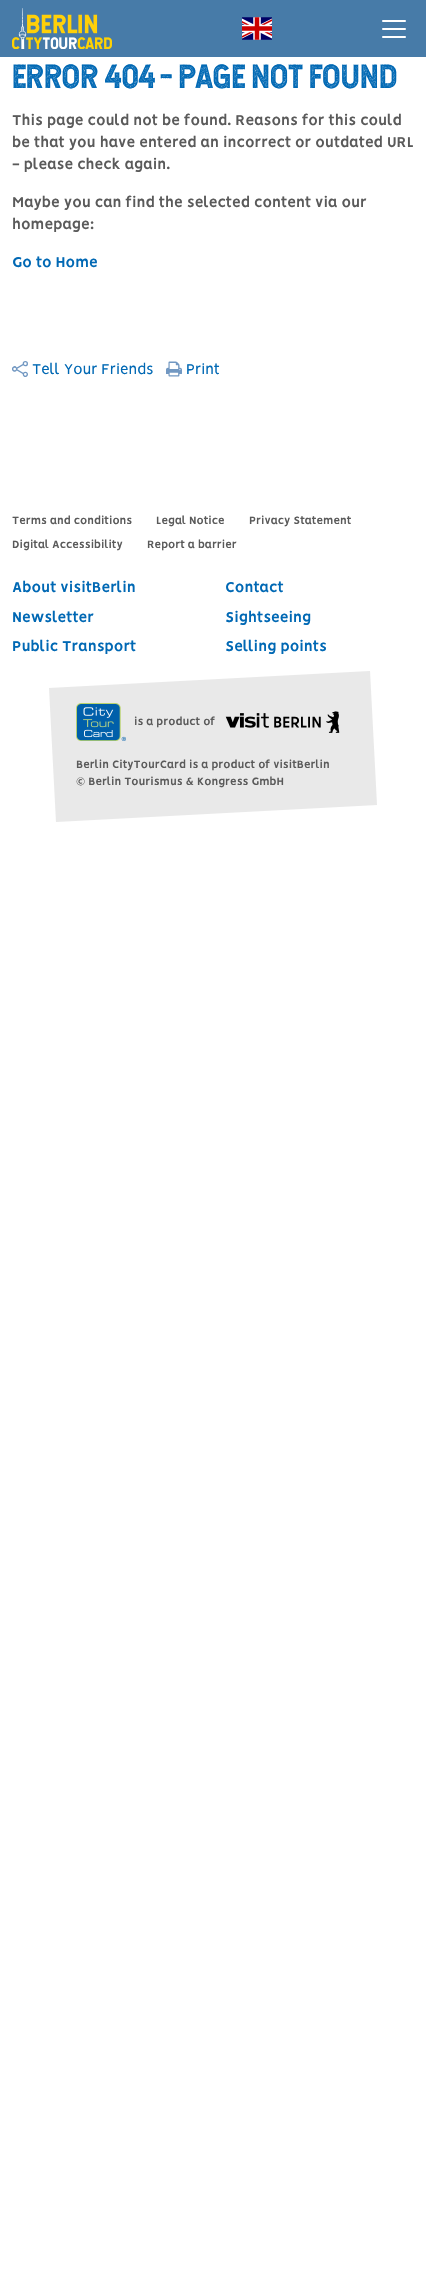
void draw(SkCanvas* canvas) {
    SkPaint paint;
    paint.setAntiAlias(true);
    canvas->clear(0xFFFFFFFF);
    paint.setColor(0xFF477BA8);
    canvas->drawRect(SkRect::MakeXYWH(0, 0, 426, 57), paint);
    canvas->drawImageRect(SkImages::DeferredFromEncodedData(SkData::MakeFromFileName("img1.png")), SkRect::MakeXYWH(12, 8, 100, 41), SkSamplingOptions());
    canvas->drawImageRect(SkImages::DeferredFromEncodedData(SkData::MakeFromFileName("img2.png")), SkRect::MakeXYWH(242, 17, 30, 23), SkSamplingOptions());
    canvas->drawImageRect(SkImages::DeferredFromEncodedData(SkData::MakeFromFileName("img3.png")), SkRect::MakeXYWH(382, 20, 24, 18), SkSamplingOptions());
    SkFont font1(fontMgr->matchFamilyStyle("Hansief", SkFontStyle::Normal()), 31.75f);
    font1.setSubpixel(true);
    paint.setColor(0xFF0068B4);
    canvas->drawString("ERROR 404 - PAGE NOT FOUND", 12, 88, font1, paint);
    SkFont font2(fontMgr->matchFamilyStyle("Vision", SkFontStyle::Bold()), 16);
    font2.setSubpixel(true);
    paint.setColor(0xFF5A5A5A);
    canvas->drawString("This page could not be found. Reasons for this could", 12, 125, font2, paint);
    canvas->drawString("be that you have entered an incorrect or outdated URL", 12, 147, font2, paint);
    canvas->drawString("- please check again.", 12, 169, font2, paint);
    canvas->drawString("Maybe you can find the selected content via our", 12, 207, font2, paint);
    canvas->drawString("homepage:", 12, 229, font2, paint);
    paint.setColor(0xFF0068B4);
    canvas->drawString("Go to Home", 12, 267, font2, paint);
    canvas->drawImageRect(SkImages::DeferredFromEncodedData(SkData::MakeFromFileName("img4.png")), SkRect::MakeXYWH(12, 361, 16, 16), SkSamplingOptions());
    SkFont font3(fontMgr->matchFamilyStyle("Vision", SkFontStyle::Normal()), 16);
    font3.setSubpixel(true);
    canvas->drawString("Tell Your Friends", 32, 374, font3, paint);
    canvas->drawImageRect(SkImages::DeferredFromEncodedData(SkData::MakeFromFileName("img5.png")), SkRect::MakeXYWH(166, 361, 16, 16), SkSamplingOptions());
    canvas->drawString("Print", 186, 374, font3, paint);
    SkFont font4(fontMgr->matchFamilyStyle("Vision", SkFontStyle::Bold()), 12);
    font4.setSubpixel(true);
    paint.setColor(0xFF5A5A5A);
    canvas->drawString("Terms and conditions", 12, 524, font4, paint);
    canvas->drawString("Legal Notice", 156, 524, font4, paint);
    canvas->drawString("Privacy Statement", 249, 524, font4, paint);
    canvas->drawString("Digital Accessibility", 12, 548, font4, paint);
    canvas->drawString("Report a barrier", 147, 548, font4, paint);
    paint.setColor(0xFF0068B4);
    canvas->drawString("About visitBerlin", 12, 592, font2, paint);
    canvas->drawString("Contact", 225, 592, font2, paint);
    canvas->drawString("Newsletter", 12, 622, font2, paint);
    canvas->drawString("Sightseeing", 225, 622, font2, paint);
    canvas->drawString("Public Transport", 12, 651, font2, paint);
    canvas->drawString("Selling points", 225, 651, font2, paint);
    paint.setColor(0xFFE9E9E9);
    canvas->drawPath(SkPathBuilder().moveTo(49, 688).lineTo(370, 671).lineTo(377, 805).lineTo(56, 822).close().detach(), paint);
    canvas->drawImageRect(SkImages::DeferredFromEncodedData(SkData::MakeFromFileName("img6.png")), SkRect::MakeXYWH(76, 703, 50, 38), SkSamplingOptions());
    paint.setColor(0xFF5A5A5A);
    canvas->drawString("is a product of", 134, 725, font4, paint);
    canvas->drawImageRect(SkImages::DeferredFromEncodedData(SkData::MakeFromFileName("img7.png")), SkRect::MakeXYWH(225, 711, 115, 22), SkSamplingOptions());
    canvas->drawString("Berlin CityTourCard is a product of visitBerlin", 76, 768, font4, paint);
    canvas->drawString("© Berlin Tourismus & Kongress GmbH", 76, 785, font4, paint);
}
